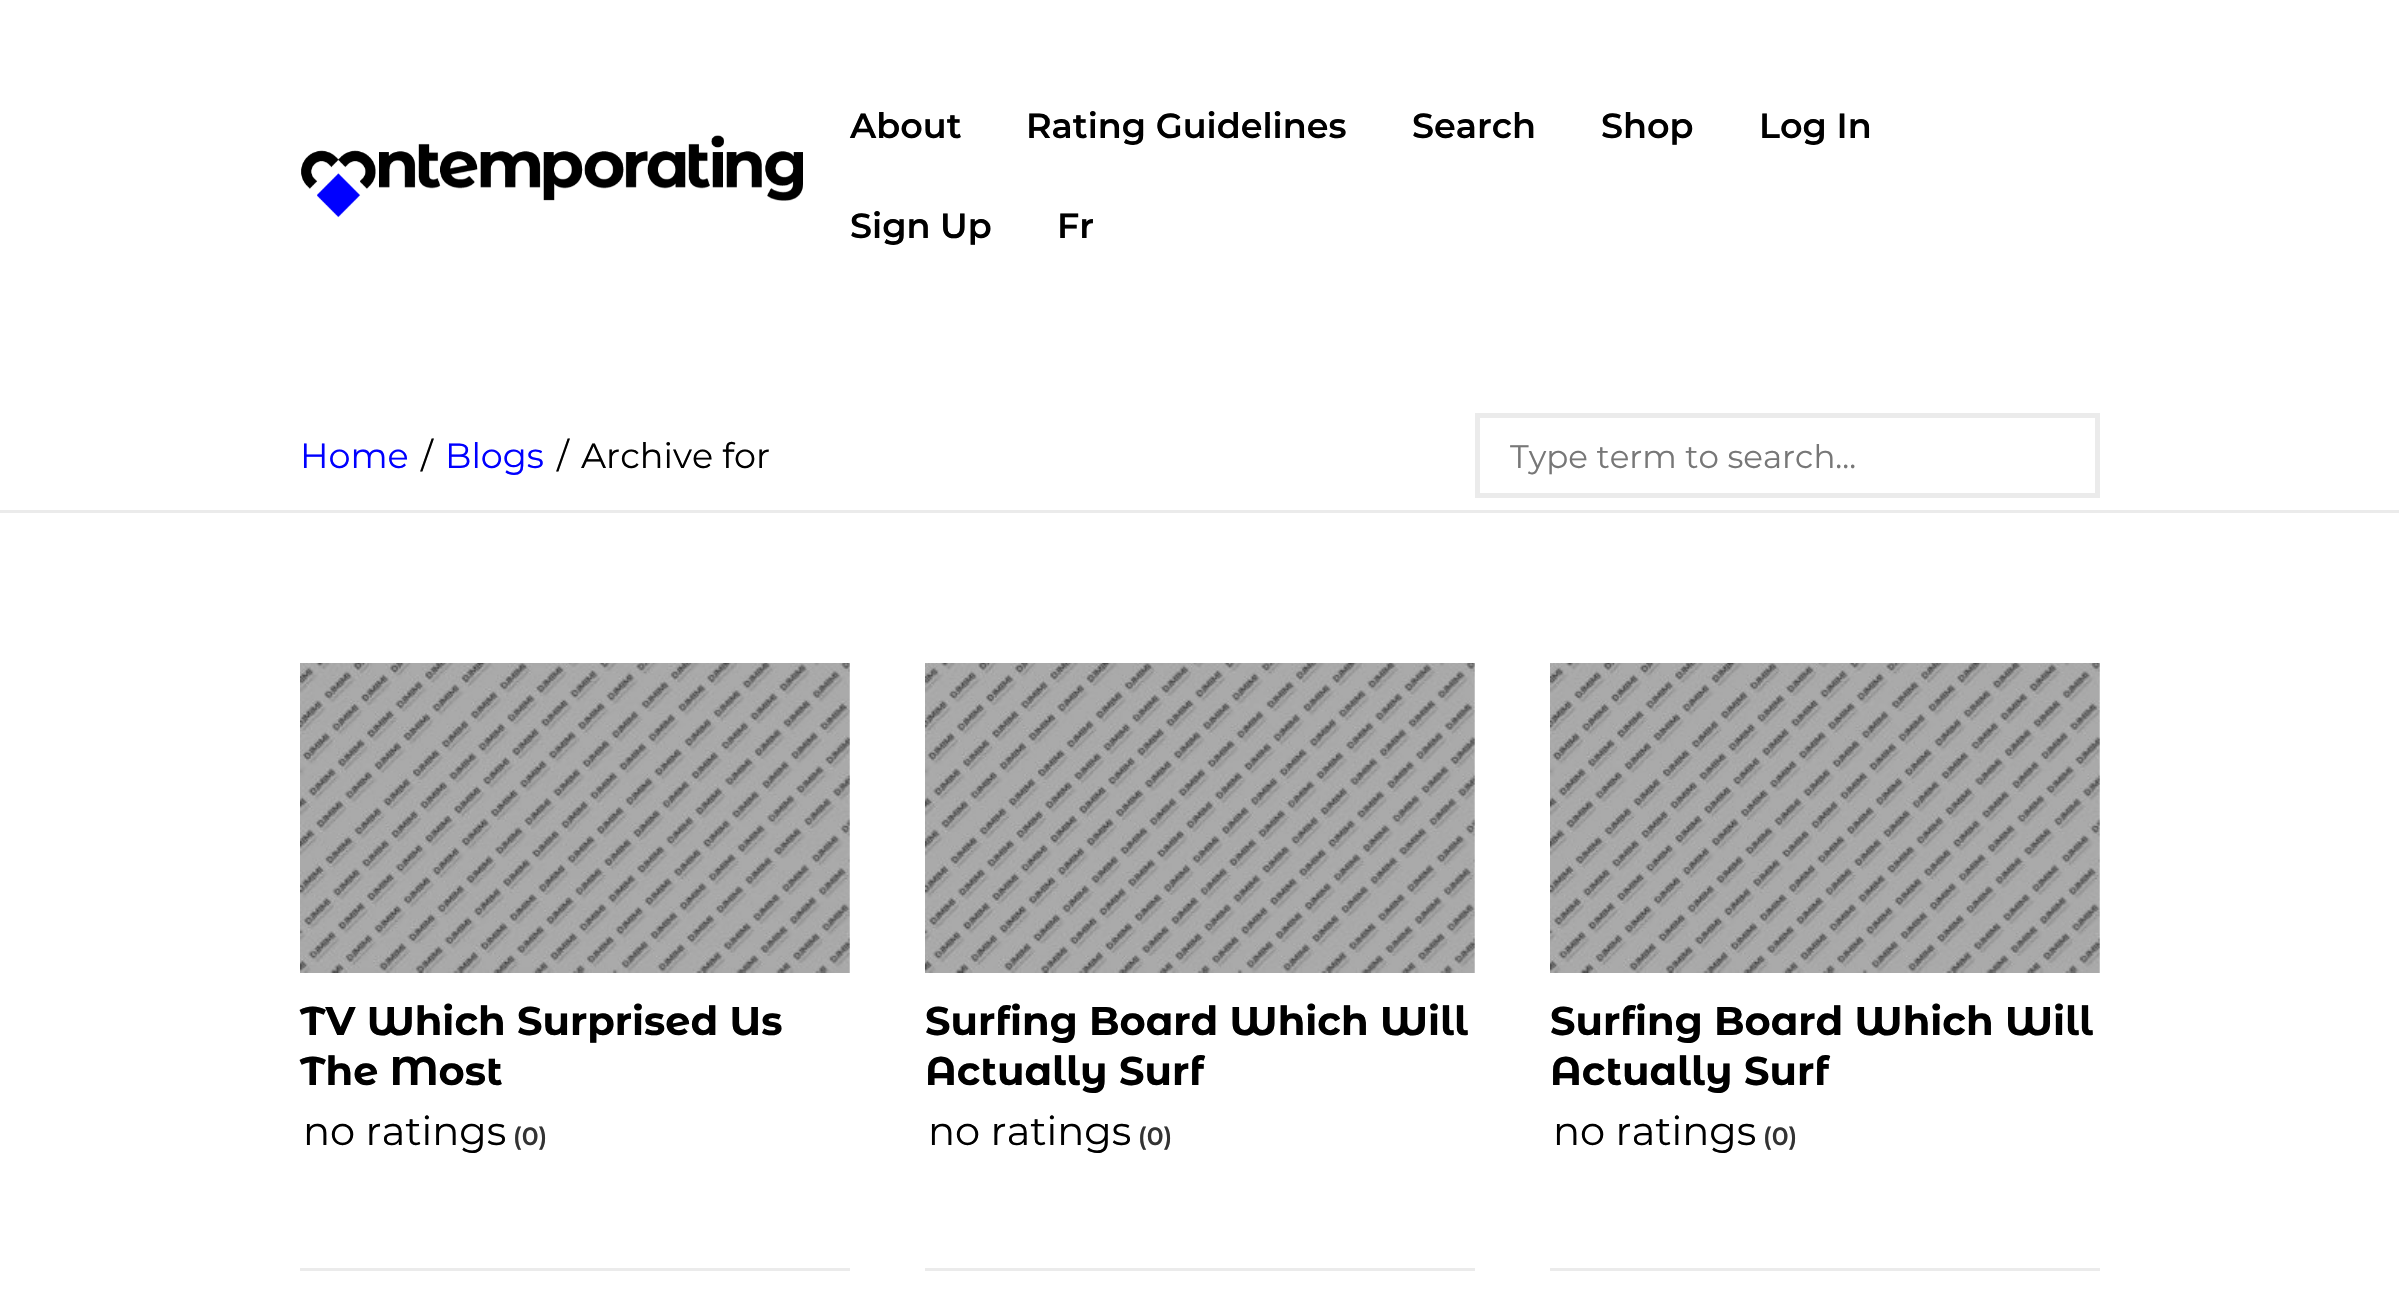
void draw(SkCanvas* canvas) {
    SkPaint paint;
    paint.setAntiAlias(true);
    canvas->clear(0xFFFFFFFF);
    canvas->drawImageRect(SkImages::DeferredFromEncodedData(SkData::MakeFromFileName("img1.png")), SkRect::MakeXYWH(301, 135, 502, 83), SkSamplingOptions());
    SkFont font1(fontMgr->matchFamilyStyle("Montserrat", SkFontStyle(600, SkFontStyle::kNormal_Width, SkFontStyle::kUpright_Slant)), 35);
    font1.setSubpixel(true);
    paint.setColor(0xFF000000);
    canvas->drawString("About", 850, 138, font1, paint);
    canvas->drawString("Rating Guidelines", 1026, 138, font1, paint);
    canvas->drawString("Search", 1412, 138, font1, paint);
    canvas->drawString("Shop", 1601, 138, font1, paint);
    canvas->drawString("Log In", 1759, 138, font1, paint);
    canvas->drawString("Sign Up", 850, 238, font1, paint);
    canvas->drawString("Fr", 1057, 238, font1, paint);
    paint.setColor(0xFFEBEBEB);
    canvas->drawRect(SkRect::MakeXYWH(0, 510, 2399, 3), paint);
    SkFont font2(fontMgr->matchFamilyStyle("Montserrat", SkFontStyle::Normal()), 35);
    font2.setSubpixel(true);
    paint.setColor(0xFF0000FF);
    canvas->drawString("Home", 300, 468, font2, paint);
    paint.setColor(0xFF000000);
    canvas->drawString("/", 421, 468, font2, paint);
    paint.setColor(0xFF0000FF);
    canvas->drawString("Blogs", 445, 468, font2, paint);
    paint.setColor(0xFF000000);
    canvas->drawString("/", 557, 468, font2, paint);
    canvas->drawString("Archive for", 581, 468, font2, paint);
    paint.setStyle(SkPaint::kStroke_Style);
    paint.setStrokeWidth(5);
    paint.setColor(0xFFEBEBEB);
    canvas->drawRect(SkRect::MakeXYWH(1477.5f, 415.5f, 620, 80), paint);
    SkFont font3(fontMgr->matchFamilyStyle("Montserrat", SkFontStyle::Normal()), 32.5f);
    font3.setSubpixel(true);
    paint.setStyle(SkPaint::kFill_Style);
    paint.setColor(0xFF777777);
    canvas->drawString("Type term to search...", 1510, 468, font3, paint);
    paint.setColor(0xFFEBEBEB);
    canvas->drawRect(SkRect::MakeXYWH(300, 1268, 550, 3), paint);
    canvas->drawImageRect(SkImages::DeferredFromEncodedData(SkData::MakeFromFileName("img2.png")), SkRect::MakeXYWH(300, 663, 550, 310), SkSamplingOptions());
    SkFont font4(fontMgr->matchFamilyStyle("Montserrat Alternates", SkFontStyle::Bold()), 40);
    font4.setSubpixel(true);
    paint.setColor(0xFF000000);
    canvas->drawString("TV Which Surprised Us", 300, 1035, font4, paint);
    canvas->drawString("The Most", 300, 1085, font4, paint);
    SkFont font5(fontMgr->matchFamilyStyle("Montserrat", SkFontStyle::Normal()), 40);
    font5.setSubpixel(true);
    canvas->drawString("no ratings", 303, 1145, font5, paint);
    SkFont font6(fontMgr->matchFamilyStyle("Montserrat", SkFontStyle(600, SkFontStyle::kNormal_Width, SkFontStyle::kUpright_Slant)), 25);
    font6.setSubpixel(true);
    paint.setColor(0xFF333333);
    canvas->drawString("(0)", 513, 1145, font6, paint);
    paint.setColor(0xFFEBEBEB);
    canvas->drawRect(SkRect::MakeXYWH(925, 1268, 550, 3), paint);
    canvas->drawImageRect(SkImages::DeferredFromEncodedData(SkData::MakeFromFileName("img3.png")), SkRect::MakeXYWH(925, 663, 550, 310), SkSamplingOptions());
    paint.setColor(0xFF000000);
    canvas->drawString("Surfing Board Which Will", 925, 1035, font4, paint);
    canvas->drawString("Actually Surf", 925, 1085, font4, paint);
    canvas->drawString("no ratings", 928, 1145, font5, paint);
    paint.setColor(0xFF333333);
    canvas->drawString("(0)", 1138, 1145, font6, paint);
    paint.setColor(0xFFEBEBEB);
    canvas->drawRect(SkRect::MakeXYWH(1550, 1268, 550, 3), paint);
    canvas->drawImageRect(SkImages::DeferredFromEncodedData(SkData::MakeFromFileName("img4.png")), SkRect::MakeXYWH(1550, 663, 550, 310), SkSamplingOptions());
    paint.setColor(0xFF000000);
    canvas->drawString("Surfing Board Which Will", 1550, 1035, font4, paint);
    canvas->drawString("Actually Surf", 1550, 1085, font4, paint);
    canvas->drawString("no ratings", 1553, 1145, font5, paint);
    paint.setColor(0xFF333333);
    canvas->drawString("(0)", 1763, 1145, font6, paint);
}
